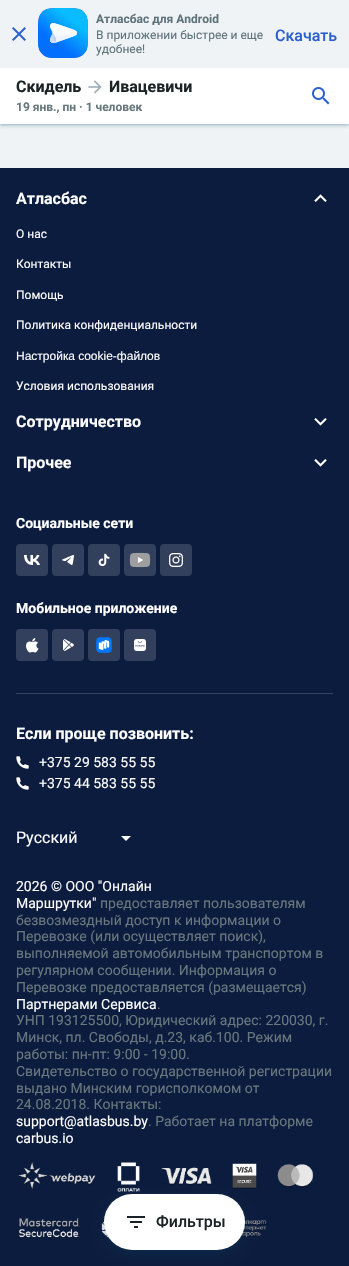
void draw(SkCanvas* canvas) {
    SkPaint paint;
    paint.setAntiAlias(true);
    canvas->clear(0xFFF0F3F5);
    paint.setColor(0x2E084E68);
    paint.setMaskFilter(SkMaskFilter::MakeBlur(kNormal_SkBlurStyle, 1));
    canvas->drawRect(SkRect::MakeXYWH(0, 0, 349, 124), paint);
    paint.setMaskFilter(nullptr);
    paint.setColor(0x1F084E68);
    paint.setMaskFilter(SkMaskFilter::MakeBlur(kNormal_SkBlurStyle, 2));
    canvas->drawRect(SkRect::MakeXYWH(0, 2, 349, 124), paint);
    paint.setMaskFilter(nullptr);
    paint.setColor(0x2E084E68);
    paint.setMaskFilter(SkMaskFilter::MakeBlur(kNormal_SkBlurStyle, 1));
    canvas->drawRect(SkRect::MakeXYWH(0, 0, 349, 124), paint);
    paint.setMaskFilter(nullptr);
    paint.setColor(0x1F084E68);
    paint.setMaskFilter(SkMaskFilter::MakeBlur(kNormal_SkBlurStyle, 2));
    canvas->drawRect(SkRect::MakeXYWH(0, 2, 349, 124), paint);
    paint.setMaskFilter(nullptr);
    paint.setColor(0xFFF0F3F5);
    canvas->drawRect(SkRect::MakeXYWH(0, 0, 349, 68), paint);
    canvas->drawImageRect(SkImages::DeferredFromEncodedData(SkData::MakeFromFileName("img1.png")), SkRect::MakeXYWH(12, 27, 14, 14), SkSamplingOptions());
    canvas->drawImageRect(SkImages::DeferredFromEncodedData(SkData::MakeFromFileName("img2.png")), SkRect::MakeXYWH(38, 8, 50, 50), SkSamplingOptions());
    SkFont font1(fontMgr->matchFamilyStyle("Roboto", SkFontStyle::Bold()), 12);
    font1.setSubpixel(true);
    paint.setColor(0xFF5E747B);
    canvas->drawString("Атласбас для Android", 96, 23, font1, paint);
    SkFont font2(fontMgr->matchFamilyStyle("Roboto", SkFontStyle::Normal()), 12);
    font2.setSubpixel(true);
    canvas->drawString("В приложении быстрее и еще", 96, 39, font2, paint);
    canvas->drawString("удобнее!", 96, 53, font2, paint);
    SkFont font3(fontMgr->matchFamilyStyle("Roboto", SkFontStyle(500, SkFontStyle::kNormal_Width, SkFontStyle::kUpright_Slant)), 16);
    font3.setSubpixel(true);
    paint.setColor(0xFF2A5FCF);
    canvas->drawString("Скачать", 275, 41, font3, paint);
    paint.setColor(0xFFFFFFFF);
    canvas->drawRect(SkRect::MakeXYWH(0, 68, 349, 56), paint);
    SkFont font4(fontMgr->matchFamilyStyle("Roboto", SkFontStyle::Bold()), 16);
    font4.setSubpixel(true);
    paint.setColor(0xFF1B2325);
    canvas->drawString("Скидель", 16, 92, font4, paint);
    canvas->drawImageRect(SkImages::DeferredFromEncodedData(SkData::MakeFromFileName("img3.png")), SkRect::MakeXYWH(88, 80, 14, 14), SkSamplingOptions());
    canvas->drawString("Ивацевичи", 109, 92, font4, paint);
    paint.setColor(0xFF68787D);
    canvas->drawString("19 янв., пн · 1 человек", 16, 111, font1, paint);
    canvas->drawImageRect(SkImages::DeferredFromEncodedData(SkData::MakeFromFileName("img4.png")), SkRect::MakeXYWH(312, 87, 18, 18), SkSamplingOptions());
    paint.setColor(0xFF0C1C3E);
    canvas->drawRect(SkRect::MakeXYWH(0, 168, 349, 1098), paint);
    paint.setColor(0xFFFFFFFF);
    canvas->drawString("Атласбас", 16, 204, font4, paint);
    canvas->drawImageRect(SkImages::DeferredFromEncodedData(SkData::MakeFromFileName("img5.png")), SkRect::MakeXYWH(314, 194, 13, 8), SkSamplingOptions());
    canvas->drawString("О нас", 16, 238, font2, paint);
    canvas->drawString("Контакты", 16, 268, font2, paint);
    canvas->drawString("Помощь", 16, 299, font2, paint);
    canvas->drawString("Политика конфиденциальности", 16, 329, font2, paint);
    SkFont font5(fontMgr->matchFamilyStyle("Liberation Sans", SkFontStyle::Normal()), 12);
    font5.setSubpixel(true);
    canvas->drawString("Настройка cookie-файлов", 16, 360, font5, paint);
    canvas->drawString("Условия использования", 16, 390, font2, paint);
    canvas->drawString("Сотрудничество", 16, 427, font4, paint);
    canvas->drawImageRect(SkImages::DeferredFromEncodedData(SkData::MakeFromFileName("img6.png")), SkRect::MakeXYWH(314, 418, 13, 8), SkSamplingOptions());
    canvas->drawString("Прочее", 16, 468, font4, paint);
    canvas->drawImageRect(SkImages::DeferredFromEncodedData(SkData::MakeFromFileName("img6.png")), SkRect::MakeXYWH(314, 459, 13, 8), SkSamplingOptions());
    SkFont font6(fontMgr->matchFamilyStyle("Roboto", SkFontStyle::Bold()), 14);
    font6.setSubpixel(true);
    canvas->drawString("Социальные сети", 16, 528, font6, paint);
    paint.setColor(0xFF33405D);
    canvas->drawRoundRect(SkRect::MakeXYWH(16, 544, 32, 32), 4, 4, paint);
    canvas->drawImageRect(SkImages::DeferredFromEncodedData(SkData::MakeFromFileName("img7.png")), SkRect::MakeXYWH(24, 555, 16, 10), SkSamplingOptions());
    canvas->drawRoundRect(SkRect::MakeXYWH(52, 544, 32, 32), 4, 4, paint);
    canvas->drawImageRect(SkImages::DeferredFromEncodedData(SkData::MakeFromFileName("img8.png")), SkRect::MakeXYWH(62, 555, 12, 10), SkSamplingOptions());
    canvas->drawRoundRect(SkRect::MakeXYWH(88, 544, 32, 32), 4, 4, paint);
    canvas->drawImageRect(SkImages::DeferredFromEncodedData(SkData::MakeFromFileName("img9.png")), SkRect::MakeXYWH(98, 553, 12, 14), SkSamplingOptions());
    canvas->drawRoundRect(SkRect::MakeXYWH(124, 544, 32, 32), 4, 4, paint);
    canvas->drawImageRect(SkImages::DeferredFromEncodedData(SkData::MakeFromFileName("img10.png")), SkRect::MakeXYWH(129, 552, 22, 16), SkSamplingOptions());
    canvas->drawRoundRect(SkRect::MakeXYWH(160, 544, 32, 32), 4, 4, paint);
    canvas->drawImageRect(SkImages::DeferredFromEncodedData(SkData::MakeFromFileName("img11.png")), SkRect::MakeXYWH(169, 553, 14, 14), SkSamplingOptions());
    paint.setColor(0xFFFFFFFF);
    canvas->drawString("Мобильное приложение", 16, 613, font6, paint);
    paint.setColor(0xFF33405D);
    canvas->drawRoundRect(SkRect::MakeXYWH(16, 629, 32, 32), 4, 4, paint);
    canvas->drawImageRect(SkImages::DeferredFromEncodedData(SkData::MakeFromFileName("img12.png")), SkRect::MakeXYWH(26, 638, 13, 15), SkSamplingOptions());
    canvas->drawRoundRect(SkRect::MakeXYWH(52, 629, 32, 32), 4, 4, paint);
    canvas->drawImageRect(SkImages::DeferredFromEncodedData(SkData::MakeFromFileName("img13.png")), SkRect::MakeXYWH(63, 639, 11, 12), SkSamplingOptions());
    canvas->drawRoundRect(SkRect::MakeXYWH(88, 629, 32, 32), 4, 4, paint);
    canvas->drawImageRect(SkImages::DeferredFromEncodedData(SkData::MakeFromFileName("img14.png")), SkRect::MakeXYWH(96, 637, 16, 16), SkSamplingOptions());
    canvas->drawRoundRect(SkRect::MakeXYWH(124, 629, 32, 32), 4, 4, paint);
    canvas->drawImageRect(SkImages::DeferredFromEncodedData(SkData::MakeFromFileName("img15.png")), SkRect::MakeXYWH(134, 639, 12, 12), SkSamplingOptions());
    paint.setColor(0xFF37445F);
    canvas->drawRect(SkRect::MakeXYWH(16, 693, 317, 1), paint);
    paint.setColor(0xFFFFFFFF);
    canvas->drawString("Если проще позвонить:", 16, 739, font4, paint);
    canvas->drawImageRect(SkImages::DeferredFromEncodedData(SkData::MakeFromFileName("img16.png")), SkRect::MakeXYWH(16, 756, 13, 13), SkSamplingOptions());
    SkFont font7(fontMgr->matchFamilyStyle("Roboto", SkFontStyle::Normal()), 14);
    font7.setSubpixel(true);
    canvas->drawString("+375 29 583 55 55", 39, 767, font7, paint);
    canvas->drawImageRect(SkImages::DeferredFromEncodedData(SkData::MakeFromFileName("img16.png")), SkRect::MakeXYWH(16, 777, 13, 13), SkSamplingOptions());
    canvas->drawString("+375 44 583 55 55", 39, 788, font7, paint);
    SkFont font8(fontMgr->matchFamilyStyle("Roboto", SkFontStyle::Normal()), 16);
    font8.setSubpixel(true);
    canvas->drawString("Русский", 16, 843, font8, paint);
    canvas->drawPath(SkPathBuilder().moveTo(121, 836).lineTo(126, 841).lineTo(131, 836).close().detach(), paint);
    canvas->drawString("2026 © ООО \"Онлайн", 16, 891, font7, paint);
    canvas->drawString("Маршрутки\"", 16, 908, font7, paint);
    paint.setColor(0xFF68787D);
    canvas->drawString("предоставляет пользователям", 100, 908, font7, paint);
    canvas->drawString("безвозмездный доступ к информации о", 16, 925, font7, paint);
    canvas->drawString("Перевозке (или осуществляет поиск),", 16, 941, font7, paint);
    canvas->drawString("выполняемой автомобильным транспортом в", 16, 958, font7, paint);
    canvas->drawString("регулярном сообщении. Информация о", 16, 975, font7, paint);
    canvas->drawString("Перевозке предоставляется (размещается)", 16, 992, font7, paint);
    paint.setColor(0xFFFFFFFF);
    canvas->drawString("Партнерами Сервиса", 16, 1009, font7, paint);
    paint.setColor(0xFF68787D);
    canvas->drawString(".", 157, 1009, font7, paint);
    canvas->drawString("УНП 193125500, Юридический адрес: 220030, г.", 16, 1025, font7, paint);
    canvas->drawString("Минск, пл. Свободы, д.23, каб.100. Режим", 16, 1042, font7, paint);
    canvas->drawString("работы: пн-пт: 9:00 - 19:00.", 16, 1059, font7, paint);
    canvas->drawString("Свидетельство о государственной регистрации", 16, 1076, font7, paint);
    canvas->drawString("выдано Минским горисполкомом от", 16, 1093, font7, paint);
    canvas->drawString("24.08.2018. Контакты:", 16, 1109, font7, paint);
    paint.setColor(0xFFFFFFFF);
    canvas->drawString("support@atlasbus.by", 16, 1126, font7, paint);
    paint.setColor(0xFF68787D);
    canvas->drawString(". Работает на платформе", 148, 1126, font7, paint);
    paint.setColor(0xFFFFFFFF);
    canvas->drawString("carbus.io", 16, 1143, font7, paint);
    canvas->drawImageRect(SkImages::DeferredFromEncodedData(SkData::MakeFromFileName("img17.png")), SkRect::MakeXYWH(18, 1162, 78, 27), SkSamplingOptions());
    canvas->drawImageRect(SkImages::DeferredFromEncodedData(SkData::MakeFromFileName("img18.png")), SkRect::MakeXYWH(117, 1162, 23, 30), SkSamplingOptions());
    canvas->drawImageRect(SkImages::DeferredFromEncodedData(SkData::MakeFromFileName("img19.png")), SkRect::MakeXYWH(161, 1167, 51, 19), SkSamplingOptions());
    canvas->drawImageRect(SkImages::DeferredFromEncodedData(SkData::MakeFromFileName("img20.png")), SkRect::MakeXYWH(232, 1163, 25, 26), SkSamplingOptions());
    canvas->drawImageRect(SkImages::DeferredFromEncodedData(SkData::MakeFromFileName("img21.png")), SkRect::MakeXYWH(277, 1164, 37, 24), SkSamplingOptions());
    canvas->drawImageRect(SkImages::DeferredFromEncodedData(SkData::MakeFromFileName("img22.png")), SkRect::MakeXYWH(18, 1218, 62, 21), SkSamplingOptions());
    canvas->drawImageRect(SkImages::DeferredFromEncodedData(SkData::MakeFromFileName("img23.png")), SkRect::MakeXYWH(101, 1220, 9, 19), SkSamplingOptions());
    canvas->drawImageRect(SkImages::DeferredFromEncodedData(SkData::MakeFromFileName("img24.png")), SkRect::MakeXYWH(240, 1220, 27, 19), SkSamplingOptions());
    paint.setColor(0x42084E68);
    paint.setMaskFilter(SkMaskFilter::MakeBlur(kNormal_SkBlurStyle, 1));
    canvas->drawRoundRect(SkRect::MakeXYWH(104, 1194, 141, 56), 28, 28, paint);
    paint.setMaskFilter(nullptr);
    paint.setColor(0x2E084E68);
    paint.setMaskFilter(SkMaskFilter::MakeBlur(kNormal_SkBlurStyle, 6));
    canvas->drawRoundRect(SkRect::MakeXYWH(104, 1200, 141, 56), 28, 28, paint);
    paint.setMaskFilter(nullptr);
    paint.setColor(0xFFFFFFFF);
    canvas->drawRoundRect(SkRect::MakeXYWH(104, 1194, 141, 56), 28, 28, paint);
    canvas->drawImageRect(SkImages::DeferredFromEncodedData(SkData::MakeFromFileName("img25.png")), SkRect::MakeXYWH(127, 1216, 18, 12), SkSamplingOptions());
    paint.setColor(0xFF1B2325);
    canvas->drawString("Фильтры", 156, 1227, font3, paint);
}
